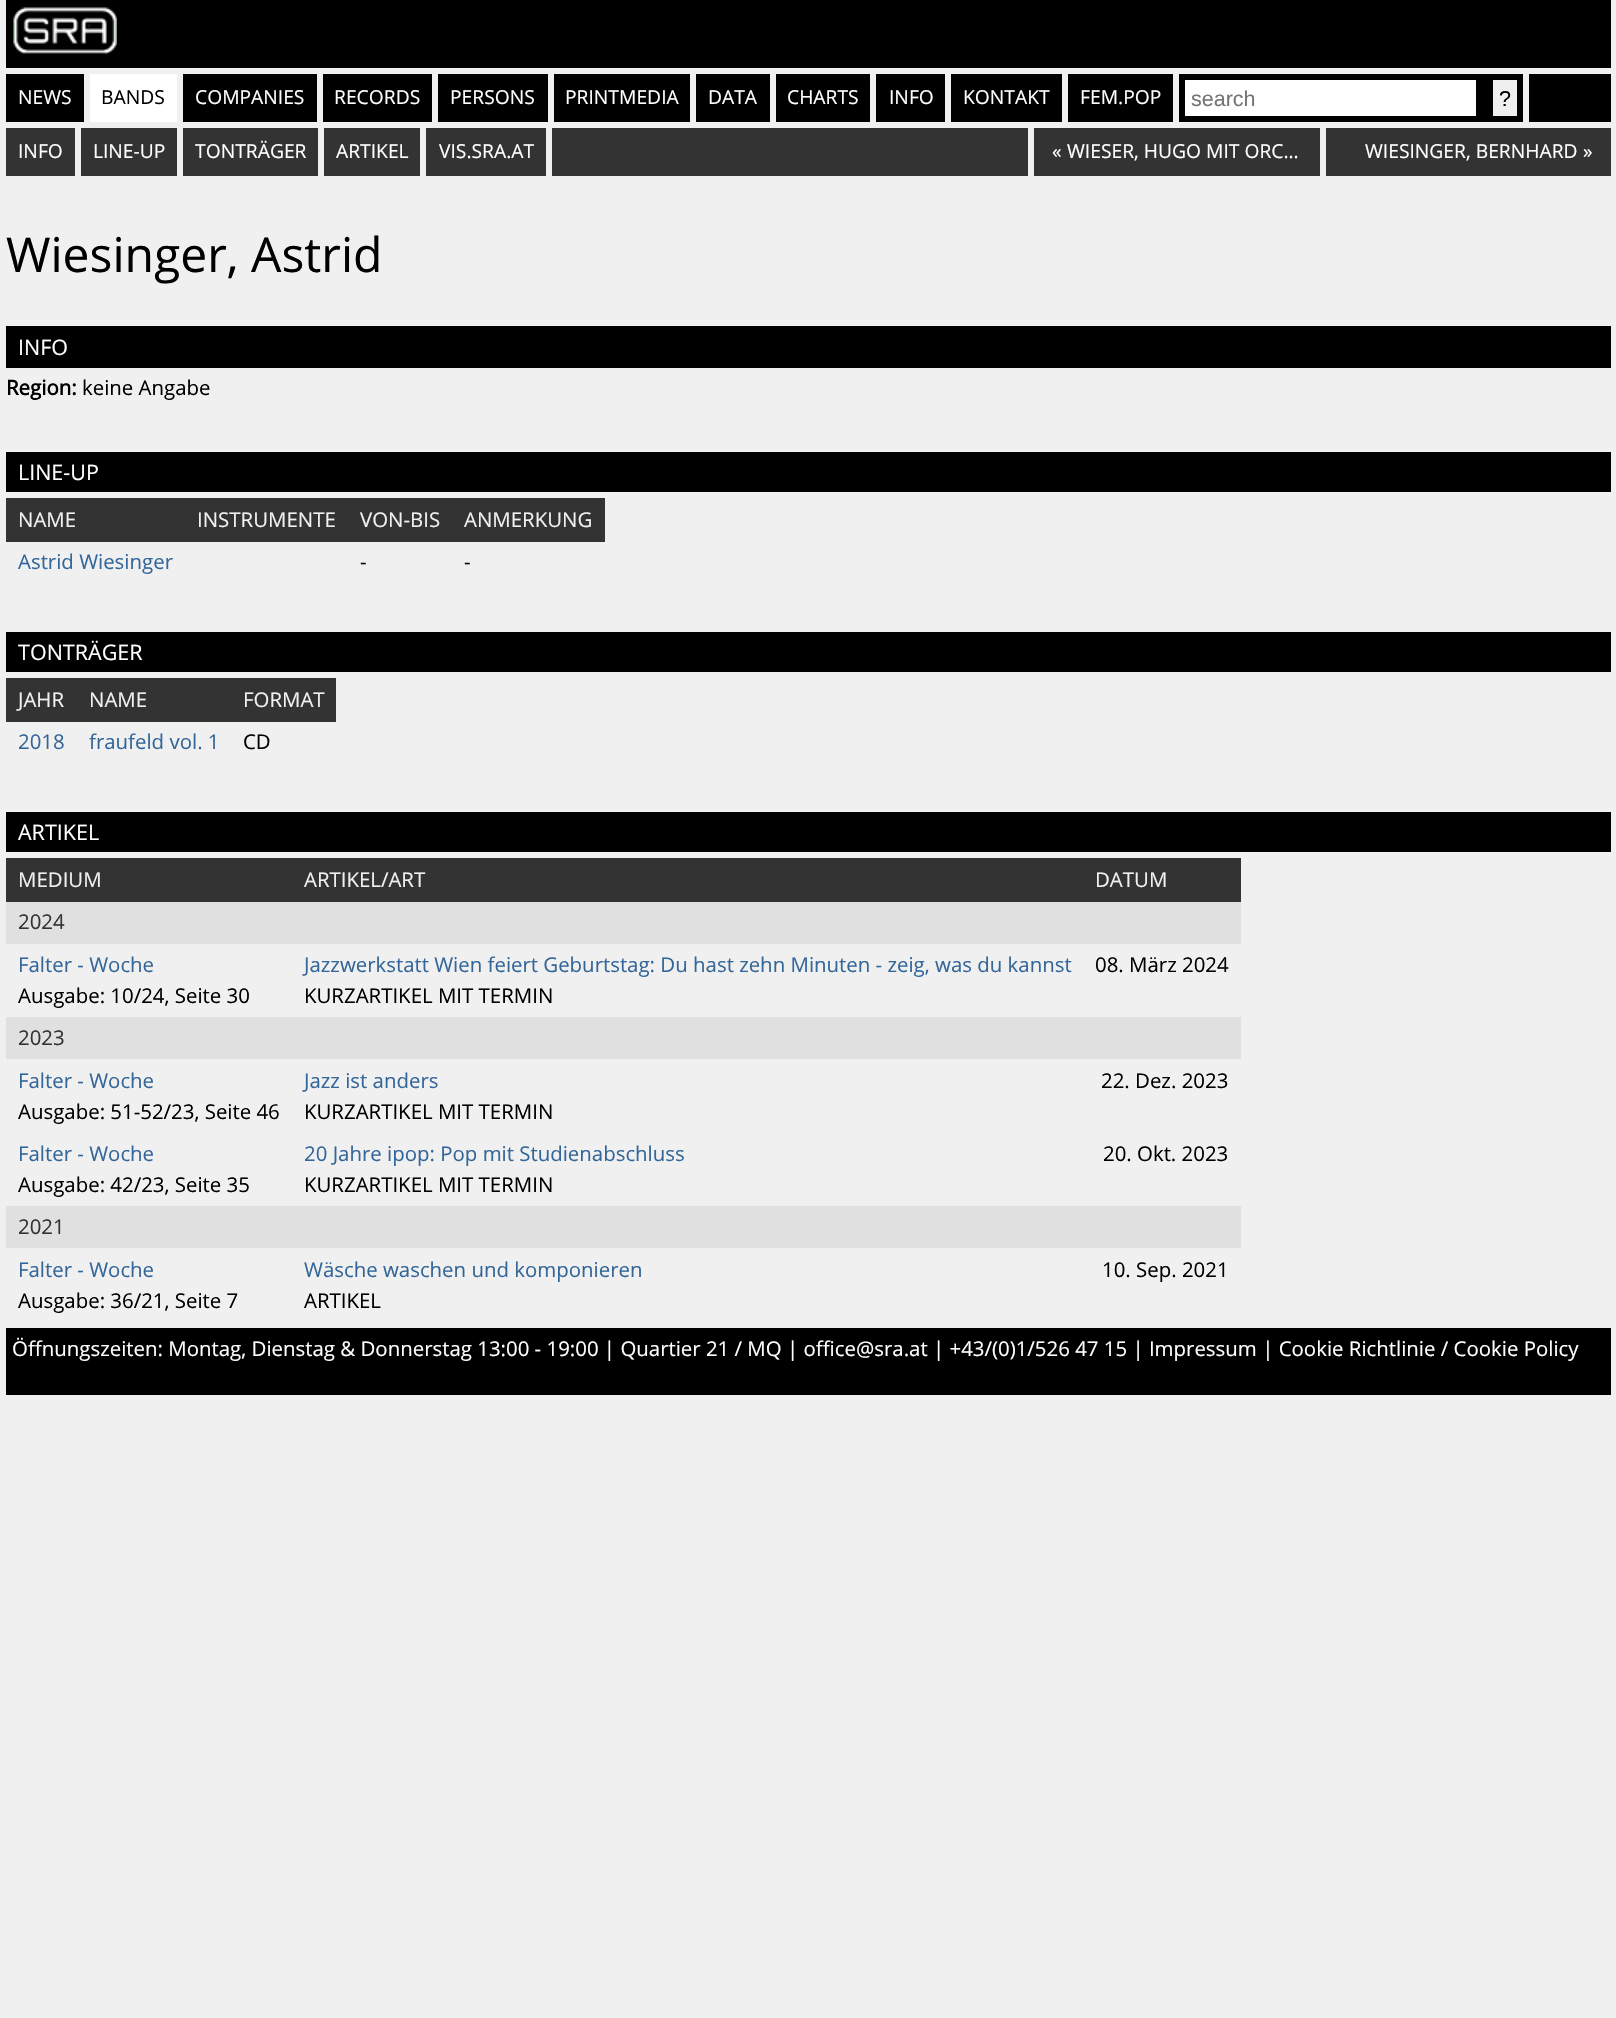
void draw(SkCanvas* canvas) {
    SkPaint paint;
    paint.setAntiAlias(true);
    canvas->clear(0xFFF0F0F0);
    paint.setColor(0xFF000000);
    canvas->drawRect(SkRect::MakeXYWH(6, 0, 1605, 68), paint);
    canvas->drawImageRect(SkImages::DeferredFromEncodedData(SkData::MakeFromFileName("img1.png")), SkRect::MakeXYWH(12, 7, 105, 47), SkSamplingOptions());
    canvas->drawRect(SkRect::MakeXYWH(6, 74, 78, 48), paint);
    SkFont font1(fontMgr->matchFamilyStyle("Open Sans", SkFontStyle::Normal()), 19.25f);
    font1.setSubpixel(true);
    paint.setColor(0xFFFFFFFF);
    canvas->drawString("NEWS", 18, 104, font1, paint);
    canvas->drawRect(SkRect::MakeXYWH(90, 74, 87, 48), paint);
    paint.setColor(0xFF000000);
    canvas->drawString("BANDS", 101, 104, font1, paint);
    canvas->drawRect(SkRect::MakeXYWH(183, 74, 134, 48), paint);
    paint.setColor(0xFFFFFFFF);
    canvas->drawString("COMPANIES", 195, 104, font1, paint);
    paint.setColor(0xFF000000);
    canvas->drawRect(SkRect::MakeXYWH(323, 74, 109, 48), paint);
    paint.setColor(0xFFFFFFFF);
    canvas->drawString("RECORDS", 334, 104, font1, paint);
    paint.setColor(0xFF000000);
    canvas->drawRect(SkRect::MakeXYWH(438, 74, 110, 48), paint);
    paint.setColor(0xFFFFFFFF);
    canvas->drawString("PERSONS", 450, 104, font1, paint);
    paint.setColor(0xFF000000);
    canvas->drawRect(SkRect::MakeXYWH(554, 74, 136, 48), paint);
    paint.setColor(0xFFFFFFFF);
    canvas->drawString("PRINTMEDIA", 565, 104, font1, paint);
    paint.setColor(0xFF000000);
    canvas->drawRect(SkRect::MakeXYWH(696, 74, 74, 48), paint);
    paint.setColor(0xFFFFFFFF);
    canvas->drawString("DATA", 708, 104, font1, paint);
    paint.setColor(0xFF000000);
    canvas->drawRect(SkRect::MakeXYWH(776, 74, 94, 48), paint);
    paint.setColor(0xFFFFFFFF);
    canvas->drawString("CHARTS", 787, 104, font1, paint);
    paint.setColor(0xFF000000);
    canvas->drawRect(SkRect::MakeXYWH(876, 74, 69, 48), paint);
    paint.setColor(0xFFFFFFFF);
    canvas->drawString("INFO", 889, 104, font1, paint);
    paint.setColor(0xFF000000);
    canvas->drawRect(SkRect::MakeXYWH(951, 74, 111, 48), paint);
    paint.setColor(0xFFFFFFFF);
    canvas->drawString("KONTAKT", 963, 104, font1, paint);
    paint.setColor(0xFF000000);
    canvas->drawRect(SkRect::MakeXYWH(1068, 74, 105, 48), paint);
    paint.setColor(0xFFFFFFFF);
    canvas->drawString("FEM.POP", 1080, 104, font1, paint);
    paint.setColor(0xFF000000);
    canvas->drawRect(SkRect::MakeXYWH(1179, 74, 344, 48), paint);
    paint.setColor(0xFFFFFFFF);
    canvas->drawRect(SkRect::MakeXYWH(1185, 80, 291, 36), paint);
    SkFont font2(fontMgr->matchFamilyStyle("Liberation Sans", SkFontStyle::Normal()), 21.5f);
    font2.setSubpixel(true);
    paint.setColor(0xFF757575);
    canvas->drawString("search", 1191, 106, font2, paint);
    paint.setColor(0xFFEFEFEF);
    canvas->drawRect(SkRect::MakeXYWH(1493, 80, 24, 36), paint);
    paint.setColor(0xFF000000);
    canvas->drawString("?", 1499, 106, font2, paint);
    canvas->drawRect(SkRect::MakeXYWH(1529, 74, 82, 48), paint);
    paint.setColor(0xFF333333);
    canvas->drawRect(SkRect::MakeXYWH(6, 128, 69, 48), paint);
    paint.setColor(0xFFFFFFFF);
    canvas->drawString("INFO", 18, 158, font1, paint);
    paint.setColor(0xFF333333);
    canvas->drawRect(SkRect::MakeXYWH(81, 128, 96, 48), paint);
    paint.setColor(0xFFFFFFFF);
    canvas->drawString("LINE-UP", 93, 158, font1, paint);
    paint.setColor(0xFF333333);
    canvas->drawRect(SkRect::MakeXYWH(183, 128, 135, 48), paint);
    paint.setColor(0xFFFFFFFF);
    canvas->drawString("TONTRÄGER", 195, 158, font1, paint);
    paint.setColor(0xFF333333);
    canvas->drawRect(SkRect::MakeXYWH(324, 128, 96, 48), paint);
    paint.setColor(0xFFFFFFFF);
    canvas->drawString("ARTIKEL", 336, 158, font1, paint);
    paint.setColor(0xFF333333);
    canvas->drawRect(SkRect::MakeXYWH(426, 128, 120, 48), paint);
    paint.setColor(0xFFFFFFFF);
    canvas->drawString("VIS.SRA.AT", 439, 158, font1, paint);
    paint.setColor(0xFF333333);
    canvas->drawRect(SkRect::MakeXYWH(552, 128, 476, 48), paint);
    canvas->drawRect(SkRect::MakeXYWH(1034, 128, 286, 48), paint);
    paint.setColor(0xFFFFFFFF);
    canvas->drawString("«", 1052, 158, font1, paint);
    canvas->drawString("WIESER, HUGO MIT ORC…", 1067, 158, font1, paint);
    paint.setColor(0xFF333333);
    canvas->drawRect(SkRect::MakeXYWH(1326, 128, 285, 48), paint);
    paint.setColor(0xFFFFFFFF);
    canvas->drawString("WIESINGER, BERNHARD", 1365, 158, font1, paint);
    canvas->drawString("»", 1583, 158, font1, paint);
    SkFont font3(fontMgr->matchFamilyStyle("Open Sans", SkFontStyle::Normal()), 48);
    font3.setSubpixel(true);
    paint.setColor(0xFF000000);
    canvas->drawString("Wiesinger, Astrid", 6, 272, font3, paint);
    canvas->drawRect(SkRect::MakeXYWH(6, 326, 1605, 42), paint);
    SkFont font4(fontMgr->matchFamilyStyle("Open Sans", SkFontStyle::Normal()), 21.5f);
    font4.setSubpixel(true);
    paint.setColor(0xFFFFFFFF);
    canvas->drawString("INFO", 18, 355, font4, paint);
    SkFont font5(fontMgr->matchFamilyStyle("Open Sans", SkFontStyle::Bold()), 20.4f);
    font5.setSubpixel(true);
    paint.setColor(0xFF000000);
    canvas->drawString("Region:", 6, 395, font5, paint);
    SkFont font6(fontMgr->matchFamilyStyle("Open Sans", SkFontStyle::Normal()), 20.4f);
    font6.setSubpixel(true);
    canvas->drawString("keine Angabe", 82, 395, font6, paint);
    canvas->drawRect(SkRect::MakeXYWH(6, 452, 1605, 40), paint);
    paint.setColor(0xFFFFFFFF);
    canvas->drawString("LINE-UP", 18, 480, font4, paint);
    paint.setColor(0xFF333333);
    canvas->drawRect(SkRect::MakeXYWH(6, 498, 599, 44), paint);
    paint.setColor(0xFFF0F0F0);
    canvas->drawString("NAME", 18, 527, font6, paint);
    canvas->drawString("INSTRUMENTE", 197, 527, font6, paint);
    canvas->drawString("VON-BIS", 360, 527, font6, paint);
    canvas->drawString("ANMERKUNG", 464, 527, font6, paint);
    paint.setColor(0xFF336699);
    canvas->drawString("Astrid Wiesinger", 18, 569, font6, paint);
    paint.setColor(0xFF000000);
    canvas->drawString("-", 360, 569, font6, paint);
    canvas->drawString("-", 464, 569, font6, paint);
    canvas->drawRect(SkRect::MakeXYWH(6, 632, 1605, 40), paint);
    paint.setColor(0xFFFFFFFF);
    canvas->drawString("TONTRÄGER", 18, 660, font4, paint);
    paint.setColor(0xFF333333);
    canvas->drawRect(SkRect::MakeXYWH(6, 678, 330, 44), paint);
    paint.setColor(0xFFF0F0F0);
    canvas->drawString("JAHR", 18, 707, font6, paint);
    canvas->drawString("NAME", 89, 707, font6, paint);
    canvas->drawString("FORMAT", 243, 707, font6, paint);
    paint.setColor(0xFF336699);
    canvas->drawString("2018", 18, 749, font6, paint);
    canvas->drawString("fraufeld vol. 1", 89, 749, font6, paint);
    paint.setColor(0xFF000000);
    canvas->drawString("CD", 243, 749, font6, paint);
    canvas->drawRect(SkRect::MakeXYWH(6, 812, 1605, 40), paint);
    paint.setColor(0xFFFFFFFF);
    canvas->drawString("ARTIKEL", 18, 840, font4, paint);
    paint.setColor(0xFF333333);
    canvas->drawRect(SkRect::MakeXYWH(6, 858, 1235, 44), paint);
    paint.setColor(0xFFF0F0F0);
    canvas->drawString("MEDIUM", 18, 887, font6, paint);
    canvas->drawString("ARTIKEL/ART", 304, 887, font6, paint);
    canvas->drawString("DATUM", 1095, 887, font6, paint);
    paint.setColor(0xFFE0E0E0);
    canvas->drawRect(SkRect::MakeXYWH(6, 902, 1235, 42), paint);
    paint.setColor(0xFF333333);
    canvas->drawString("2024", 18, 929, font6, paint);
    paint.setColor(0xFF336699);
    canvas->drawString("Falter - Woche", 18, 972, font6, paint);
    paint.setColor(0xFF000000);
    canvas->drawString("Ausgabe: 10/24, Seite 30", 18, 1003, font6, paint);
    paint.setColor(0xFF336699);
    canvas->drawString("Jazzwerkstatt Wien feiert Geburtstag: Du hast zehn Minuten - zeig, was du kannst", 304, 972, font6, paint);
    paint.setColor(0xFF000000);
    canvas->drawString("KURZARTIKEL MIT TERMIN", 304, 1003, font6, paint);
    canvas->drawString("08. März 2024", 1095, 972, font6, paint);
    paint.setColor(0xFFE0E0E0);
    canvas->drawRect(SkRect::MakeXYWH(6, 1017, 1235, 42), paint);
    paint.setColor(0xFF333333);
    canvas->drawString("2023", 18, 1045, font6, paint);
    paint.setColor(0xFF336699);
    canvas->drawString("Falter - Woche", 18, 1088, font6, paint);
    paint.setColor(0xFF000000);
    canvas->drawString("Ausgabe: 51-52/23, Seite 46", 18, 1119, font6, paint);
    paint.setColor(0xFF336699);
    canvas->drawString("Jazz ist anders", 304, 1088, font6, paint);
    paint.setColor(0xFF000000);
    canvas->drawString("KURZARTIKEL MIT TERMIN", 304, 1119, font6, paint);
    canvas->drawString("22. Dez. 2023", 1101, 1088, font6, paint);
    paint.setColor(0xFF336699);
    canvas->drawString("Falter - Woche", 18, 1161, font6, paint);
    paint.setColor(0xFF000000);
    canvas->drawString("Ausgabe: 42/23, Seite 35", 18, 1192, font6, paint);
    paint.setColor(0xFF336699);
    canvas->drawString("20 Jahre ipop: Pop mit Studienabschluss", 304, 1161, font6, paint);
    paint.setColor(0xFF000000);
    canvas->drawString("KURZARTIKEL MIT TERMIN", 304, 1192, font6, paint);
    canvas->drawString("20. Okt. 2023", 1103, 1161, font6, paint);
    paint.setColor(0xFFE0E0E0);
    canvas->drawRect(SkRect::MakeXYWH(6, 1206, 1235, 42), paint);
    paint.setColor(0xFF333333);
    canvas->drawString("2021", 18, 1234, font6, paint);
    paint.setColor(0xFF336699);
    canvas->drawString("Falter - Woche", 18, 1277, font6, paint);
    paint.setColor(0xFF000000);
    canvas->drawString("Ausgabe: 36/21, Seite 7", 18, 1308, font6, paint);
    paint.setColor(0xFF336699);
    canvas->drawString("Wäsche waschen und komponieren", 304, 1277, font6, paint);
    paint.setColor(0xFF000000);
    canvas->drawString("ARTIKEL", 304, 1308, font6, paint);
    canvas->drawString("10. Sep. 2021", 1102, 1277, font6, paint);
    canvas->drawRect(SkRect::MakeXYWH(6, 1328, 1605, 67), paint);
    paint.setColor(0xFFFFFFFF);
    canvas->drawString("Öffnungszeiten: Montag, Dienstag & Donnerstag 13:00 - 19:00 | Quartier 21 / MQ | office@sra.at | +43/(0)1/526 47 15 | Impressum | Cookie Richtlinie / Cookie Policy", 12, 1356, font6, paint);
}
